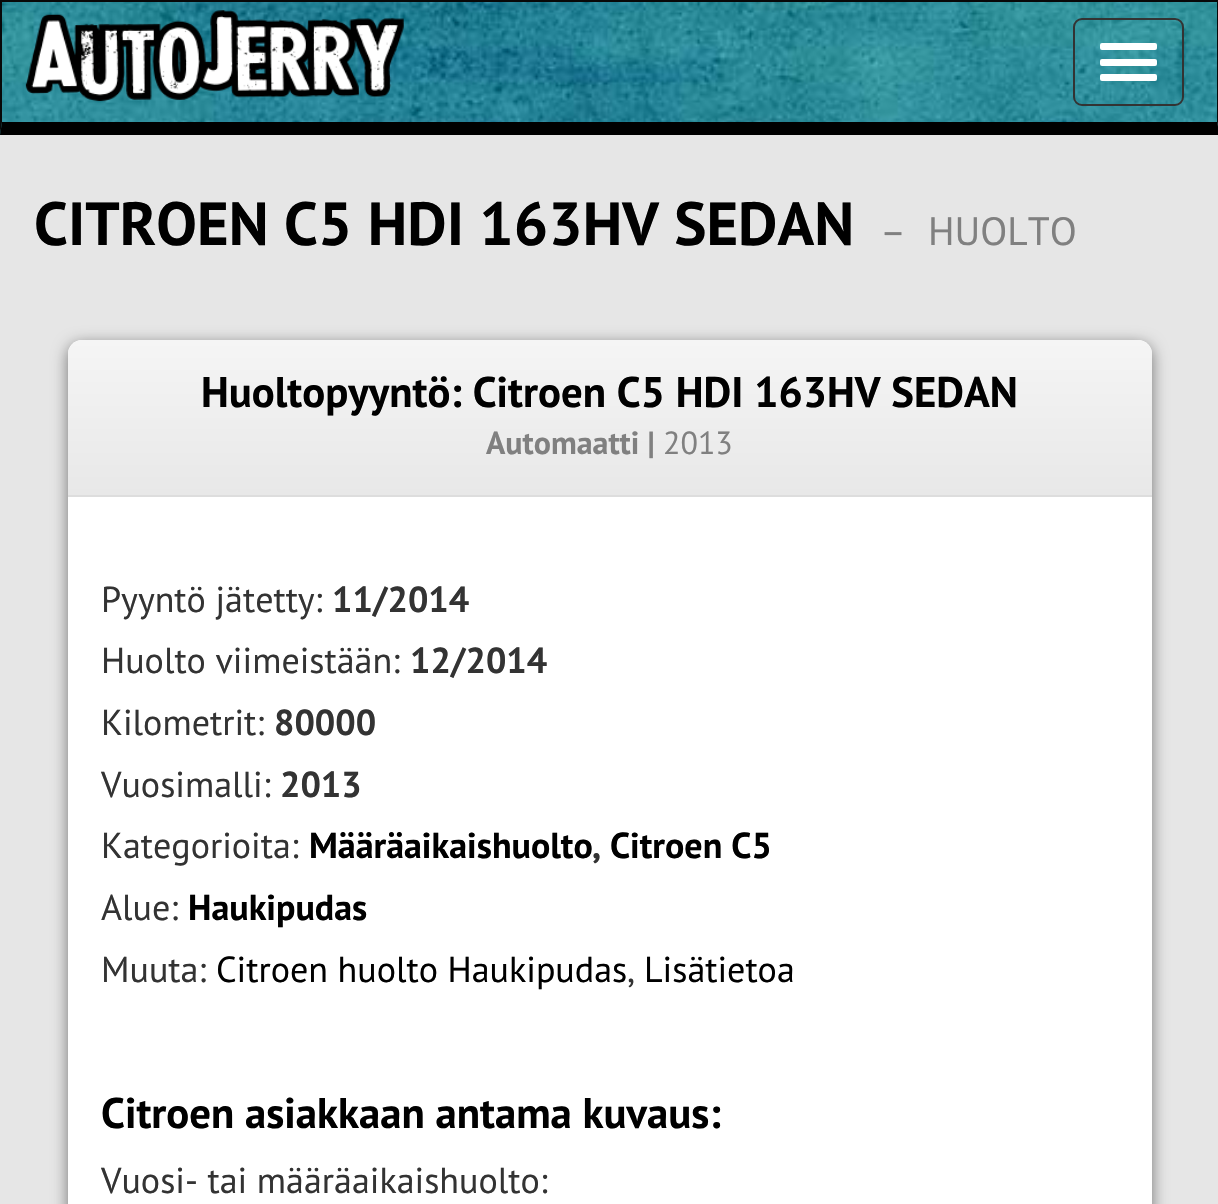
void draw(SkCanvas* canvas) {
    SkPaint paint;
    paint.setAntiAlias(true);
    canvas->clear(0xFFE6E6E6);
    canvas->drawImageRect(SkImages::DeferredFromEncodedData(SkData::MakeFromFileName("img1.png")), SkRect::MakeXYWH(0, 2, 1218, 133), SkSamplingOptions());
    paint.setColor(0xFF080808);
    canvas->drawRect(SkRect::MakeXYWH(0, 0, 1218, 2), paint);
    canvas->drawPath(SkPathBuilder().moveTo(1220, 0).lineTo(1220, 135).lineTo(1217, 122).lineTo(1217, 2).close().detach(), paint);
    paint.setColor(0xFF000000);
    canvas->drawPath(SkPathBuilder().moveTo(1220, 135).lineTo(0, 135).lineTo(2, 122).lineTo(1217, 122).close().detach(), paint);
    paint.setColor(0xFF080808);
    canvas->drawPath(SkPathBuilder().moveTo(0, 135).lineTo(0, 0).lineTo(2, 2).lineTo(2, 122).close().detach(), paint);
    canvas->drawImageRect(SkImages::DeferredFromEncodedData(SkData::MakeFromFileName("img2.png")), SkRect::MakeXYWH(25, 10, 379, 92), SkSamplingOptions());
    paint.setStyle(SkPaint::kStroke_Style);
    paint.setStrokeWidth(2);
    paint.setColor(0xFF333333);
    canvas->drawRoundRect(SkRect::MakeXYWH(1074, 19, 109, 86), 8, 8, paint);
    paint.setStyle(SkPaint::kFill_Style);
    paint.setColor(0xFFFFFFFF);
    canvas->drawRoundRect(SkRect::MakeXYWH(1100, 43, 57, 7), 2, 2, paint);
    canvas->drawRoundRect(SkRect::MakeXYWH(1100, 59, 57, 7), 2, 2, paint);
    canvas->drawRoundRect(SkRect::MakeXYWH(1100, 74, 57, 7), 2, 2, paint);
    SkFont font1(fontMgr->matchFamilyStyle("PT Sans", SkFontStyle::Bold()), 60.75f);
    font1.setSubpixel(true);
    paint.setColor(0xFF000000);
    canvas->drawString("CITROEN C5 HDI 163HV SEDAN", 34, 245, font1, paint);
    SkFont font2(fontMgr->matchFamilyStyle("PT Sans", SkFontStyle::Normal()), 39.5f);
    font2.setSubpixel(true);
    paint.setColor(0xFF808080);
    canvas->drawString("–", 880, 245, font2, paint);
    canvas->drawString("HUOLTO", 928, 245, font2, paint);
    paint.setColor(0x80000000);
    paint.setMaskFilter(SkMaskFilter::MakeBlur(kNormal_SkBlurStyle, 8));
    canvas->drawRoundRect(SkRect::MakeXYWH(68, 344, 1084, 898), 14, 14, paint);
    paint.setMaskFilter(nullptr);
    paint.setColor(0xFFFFFFFF);
    canvas->drawRoundRect(SkRect::MakeXYWH(68, 340, 1084, 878), 14, 14, paint);
    {
        const SkColor colors[] = {0xFFF5F5F5, 0xFFE8E8E8};
        const float stops[] = {0, 1};
        const SkPoint ends[] = {{610, 340}, {610, 495}};
        paint.setShader(SkGradientShader::MakeLinear(ends, colors, stops, 2, SkTileMode::kClamp));
        paint.setAlpha(255);
    }
    canvas->drawPath(SkPathBuilder().moveTo(82, 340).lineTo(1138, 340).cubicTo(1145.5f, 340, 1152, 346.5f, 1152, 354).lineTo(1152, 495).lineTo(68, 495).lineTo(68, 354).cubicTo(68, 346.5f, 74.5f, 340, 82, 340).close().detach(), paint);
    paint.setShader(nullptr);
    paint.setColor(0xFFDDDDDD);
    canvas->drawRect(SkRect::MakeXYWH(68, 495, 1084, 2), paint);
    SkFont font3(fontMgr->matchFamilyStyle("PT Sans", SkFontStyle::Bold()), 42.75f);
    font3.setSubpixel(true);
    paint.setColor(0xFF000000);
    canvas->drawString("Huoltopyyntö: Citroen C5 HDI 163HV SEDAN", 201, 407, font3, paint);
    SkFont font4(fontMgr->matchFamilyStyle("PT Sans", SkFontStyle::Bold()), 32);
    font4.setSubpixel(true);
    paint.setColor(0xFF808080);
    canvas->drawString("Automaatti |", 486, 454, font4, paint);
    SkFont font5(fontMgr->matchFamilyStyle("PT Sans", SkFontStyle::Normal()), 32);
    font5.setSubpixel(true);
    canvas->drawString("2013", 663, 454, font5, paint);
    SkFont font6(fontMgr->matchFamilyStyle("PT Sans", SkFontStyle::Normal()), 36);
    font6.setSubpixel(true);
    paint.setColor(0xFF333333);
    canvas->drawString("Pyyntö jätetty:", 101, 612, font6, paint);
    SkFont font7(fontMgr->matchFamilyStyle("PT Sans", SkFontStyle::Bold()), 36);
    font7.setSubpixel(true);
    canvas->drawString("11/2014", 332, 612, font7, paint);
    canvas->drawString("Huolto viimeistään:", 101, 673, font6, paint);
    canvas->drawString("12/2014", 410, 673, font7, paint);
    canvas->drawString("Kilometrit:", 101, 735, font6, paint);
    canvas->drawString("80000", 274, 735, font7, paint);
    canvas->drawString("Vuosimalli:", 101, 797, font6, paint);
    canvas->drawString("2013", 280, 797, font7, paint);
    canvas->drawString("Kategorioita:", 101, 858, font6, paint);
    paint.setColor(0xFF000000);
    canvas->drawString("Määräaikaishuolto", 309, 858, font7, paint);
    paint.setColor(0xFF333333);
    canvas->drawString(",", 592, 858, font7, paint);
    paint.setColor(0xFF000000);
    canvas->drawString("Citroen C5", 610, 858, font7, paint);
    paint.setColor(0xFF333333);
    canvas->drawString("Alue:", 101, 920, font6, paint);
    paint.setColor(0xFF000000);
    canvas->drawString("Haukipudas", 188, 920, font7, paint);
    paint.setColor(0xFF333333);
    canvas->drawString("Muuta:", 101, 982, font6, paint);
    paint.setColor(0xFF000000);
    canvas->drawString("Citroen huolto Haukipudas", 216, 982, font6, paint);
    paint.setColor(0xFF333333);
    canvas->drawString(",", 627, 982, font6, paint);
    paint.setColor(0xFF000000);
    canvas->drawString("Lisätietoa", 644, 982, font6, paint);
    canvas->drawString("Citroen asiakkaan antama kuvaus:", 101, 1128, font3, paint);
    paint.setColor(0xFF333333);
    canvas->drawString("Vuosi- tai määräaikaishuolto:", 101, 1193, font6, paint);
}
